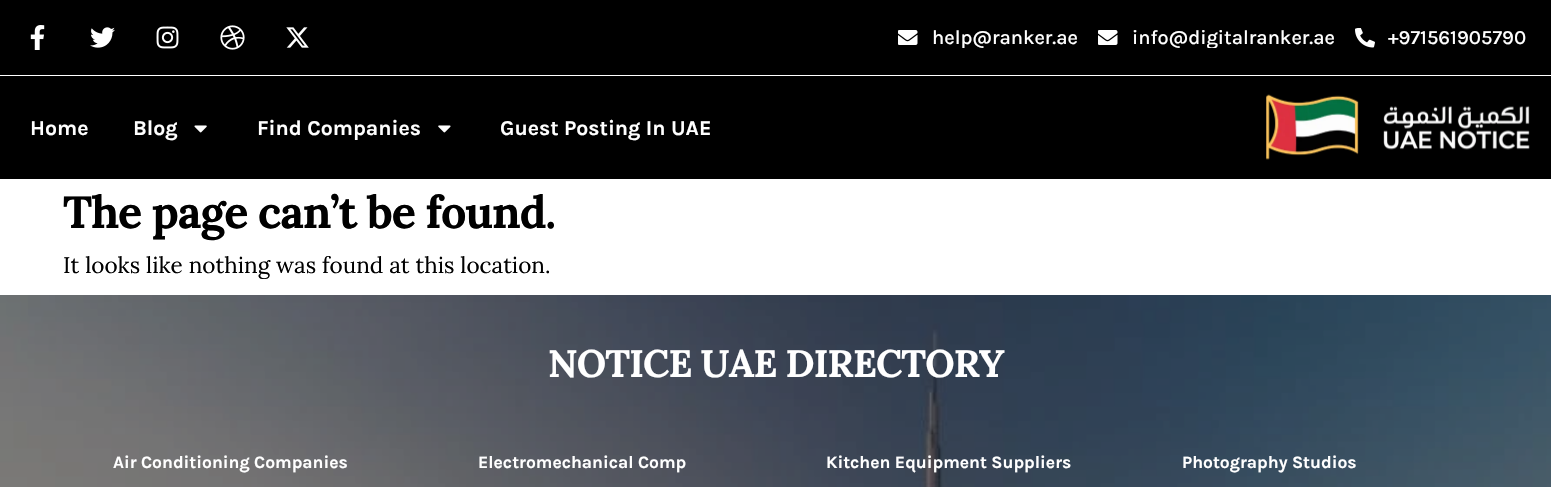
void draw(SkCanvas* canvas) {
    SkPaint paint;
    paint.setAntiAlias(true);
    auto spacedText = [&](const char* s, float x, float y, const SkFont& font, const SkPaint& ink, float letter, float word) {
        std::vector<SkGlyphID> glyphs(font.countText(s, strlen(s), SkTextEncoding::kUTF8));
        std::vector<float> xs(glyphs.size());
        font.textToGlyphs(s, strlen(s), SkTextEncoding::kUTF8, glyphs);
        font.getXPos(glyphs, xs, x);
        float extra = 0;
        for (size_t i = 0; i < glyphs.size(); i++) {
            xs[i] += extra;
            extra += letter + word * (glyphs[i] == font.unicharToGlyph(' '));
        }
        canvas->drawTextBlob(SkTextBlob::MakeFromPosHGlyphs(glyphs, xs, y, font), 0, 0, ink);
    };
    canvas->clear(0xFFFFFFFF);
    paint.setColor(0xFF000000);
    canvas->drawRect(SkRect::MakeXYWH(0, 0, 1551, 75), paint);
    canvas->drawImageRect(SkImages::DeferredFromEncodedData(SkData::MakeFromFileName("img1.png")), SkRect::MakeXYWH(30, 25, 15, 25), SkSamplingOptions());
    canvas->drawImageRect(SkImages::DeferredFromEncodedData(SkData::MakeFromFileName("img2.png")), SkRect::MakeXYWH(90, 27, 25, 21), SkSamplingOptions());
    canvas->drawImageRect(SkImages::DeferredFromEncodedData(SkData::MakeFromFileName("img3.png")), SkRect::MakeXYWH(156, 26, 23, 23), SkSamplingOptions());
    canvas->drawImageRect(SkImages::DeferredFromEncodedData(SkData::MakeFromFileName("img4.png")), SkRect::MakeXYWH(220, 25, 25, 25), SkSamplingOptions());
    canvas->drawImageRect(SkImages::DeferredFromEncodedData(SkData::MakeFromFileName("img5.png")), SkRect::MakeXYWH(286, 27, 23, 21), SkSamplingOptions());
    canvas->drawImageRect(SkImages::DeferredFromEncodedData(SkData::MakeFromFileName("img6.png")), SkRect::MakeXYWH(898, 30, 20, 15), SkSamplingOptions());
    canvas->save();
    canvas->clipRect(SkRect::MakeXYWH(789, 28, 737, 20));
    SkFont font1(fontMgr->matchFamilyStyle("Karla", SkFontStyle(500, SkFontStyle::kNormal_Width, SkFontStyle::kUpright_Slant)), 20);
    font1.setSubpixel(true);
    paint.setColor(0xFFFFFFFF);
    canvas->drawString("help@ranker.ae", 932, 44, font1, paint);
    canvas->restore();
    canvas->drawImageRect(SkImages::DeferredFromEncodedData(SkData::MakeFromFileName("img6.png")), SkRect::MakeXYWH(1098, 30, 20, 15), SkSamplingOptions());
    canvas->save();
    canvas->clipRect(SkRect::MakeXYWH(789, 28, 737, 20));
    canvas->drawString("info@digitalranker.ae", 1132, 44, font1, paint);
    canvas->restore();
    canvas->drawImageRect(SkImages::DeferredFromEncodedData(SkData::MakeFromFileName("img7.png")), SkRect::MakeXYWH(1355, 28, 20, 20), SkSamplingOptions());
    canvas->drawString("+971561905790", 1388, 44, font1, paint);
    paint.setColor(0xFF000000);
    canvas->drawRect(SkRect::MakeXYWH(0, 76, 1551, 103), paint);
    SkFont font2(fontMgr->matchFamilyStyle("Karla", SkFontStyle::Bold()), 21.25f);
    font2.setSubpixel(true);
    paint.setColor(0xFFFFFFFF);
    canvas->drawString("Home", 30, 135, font2, paint);
    canvas->drawString("Blog", 133, 135, font2, paint);
    canvas->drawImageRect(SkImages::DeferredFromEncodedData(SkData::MakeFromFileName("img8.png")), SkRect::MakeXYWH(194, 125, 13, 8), SkSamplingOptions());
    canvas->drawString("Find Companies", 257, 135, font2, paint);
    canvas->drawImageRect(SkImages::DeferredFromEncodedData(SkData::MakeFromFileName("img9.png")), SkRect::MakeXYWH(438, 125, 13, 8), SkSamplingOptions());
    canvas->drawString("Guest Posting In UAE", 500, 135, font2, paint);
    canvas->drawImageRect(SkImages::DeferredFromEncodedData(SkData::MakeFromFileName("img10.png")), SkRect::MakeXYWH(1266, 94, 264, 66), SkSamplingOptions());
    SkFont font3(fontMgr->matchFamilyStyle("Lora", SkFontStyle::Bold()), 45);
    font3.setSubpixel(true);
    paint.setColor(0xFF000000);
    spacedText("The page can’t be found.", 63, 228, font3, paint, -1.1f, 0);
    SkFont font4(fontMgr->matchFamilyStyle("Lora", SkFontStyle::Normal()), 22.5f);
    font4.setSubpixel(true);
    canvas->drawString("It looks like nothing was found at this location.", 63, 273, font4, paint);
    canvas->drawImageRect(SkImages::DeferredFromEncodedData(SkData::MakeFromFileName("img11.png")), SkRect::MakeXYWH(0, 295, 1551, 192), SkSamplingOptions());
    SkFont font5(fontMgr->matchFamilyStyle("Lora", SkFontStyle::Bold()), 38.25f);
    font5.setSubpixel(true);
    paint.setColor(0xFFFFFFFF);
    spacedText("NOTICE UAE DIRECTORY", 548, 377, font5, paint, -0.9f, 0);
    SkFont font6(fontMgr->matchFamilyStyle("Karla", SkFontStyle::Bold()), 17.5f);
    font6.setSubpixel(true);
    canvas->drawString("Air Conditioning Companies", 113, 468, font6, paint);
    canvas->drawString("Electromechanical Comp", 478, 468, font6, paint);
    canvas->drawString("Kitchen Equipment Suppliers", 826, 468, font6, paint);
    canvas->drawString("Photography Studios", 1182, 468, font6, paint);
}
